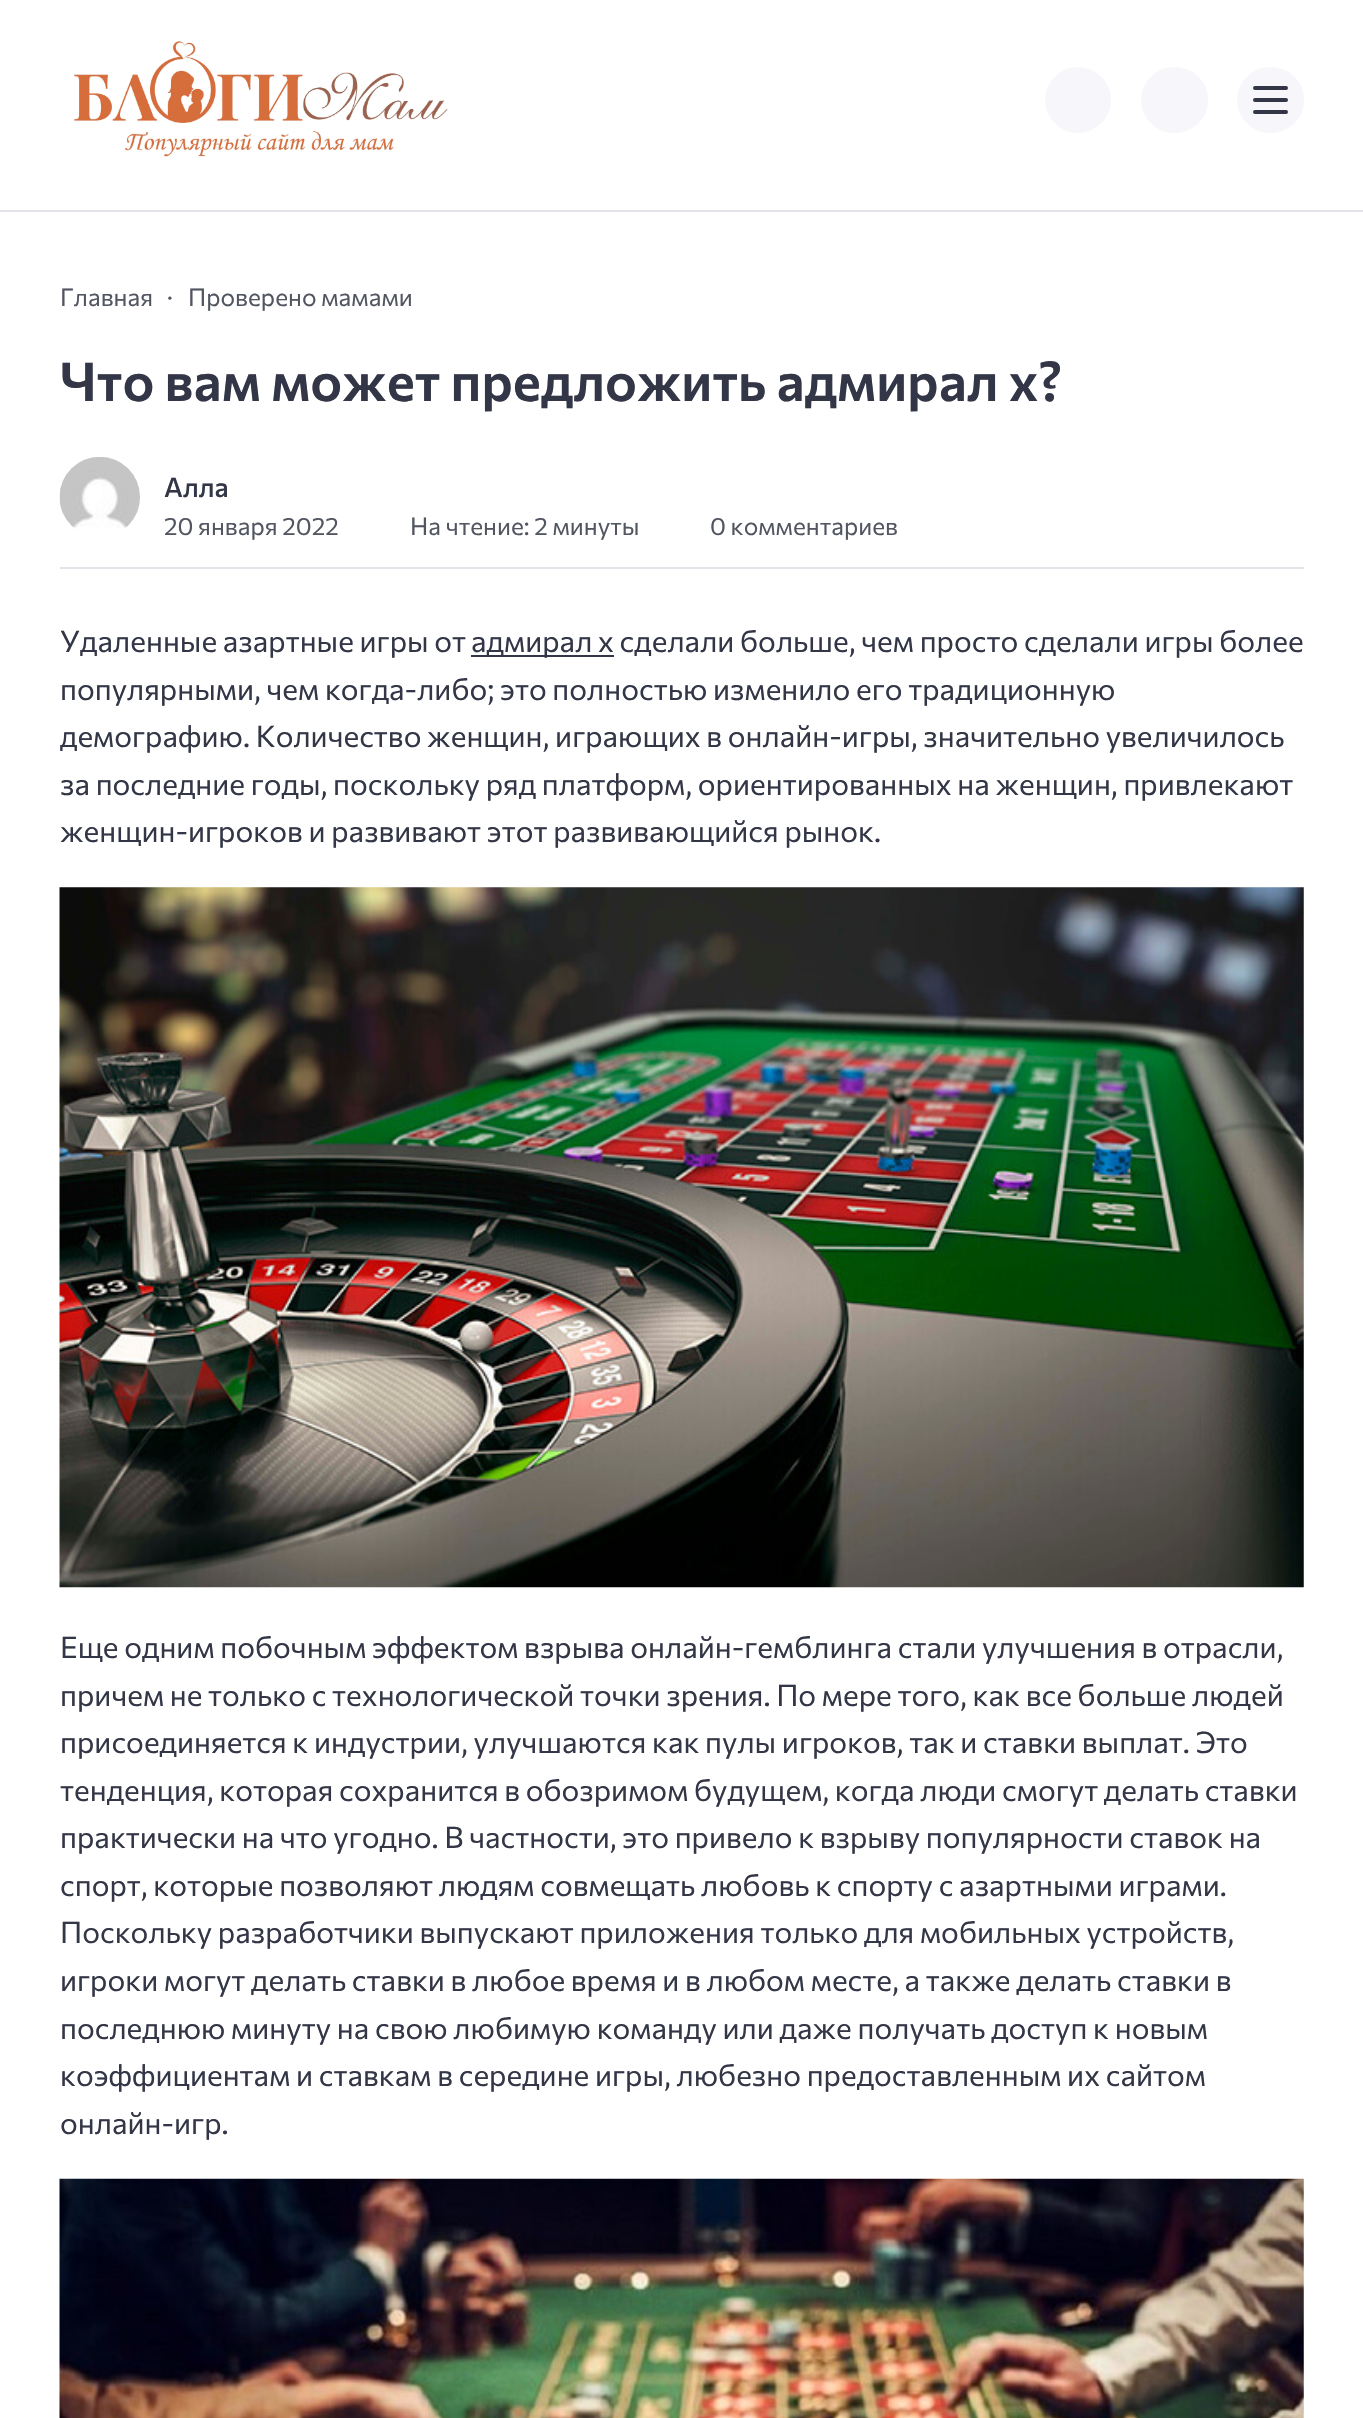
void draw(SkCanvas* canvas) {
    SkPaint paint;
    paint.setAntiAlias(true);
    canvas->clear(0xFFFFFFFF);
    paint.setColor(0xFFE3E4EA);
    canvas->drawRect(SkRect::MakeXYWH(0, 210, 1363, 2), paint);
    canvas->drawImageRect(SkImages::DeferredFromEncodedData(SkData::MakeFromFileName("img1.png")), SkRect::MakeXYWH(73, 41, 375, 116), SkSamplingOptions());
    paint.setColor(0xFFF7F6FB);
    canvas->drawCircle(1078, 100, 33, paint);
    canvas->drawRoundRect(SkRect::MakeXYWH(1141, 67, 67, 66), 33, 33, paint);
    canvas->drawRoundRect(SkRect::MakeXYWH(1237, 67, 67, 66), 33, 33, paint);
    paint.setColor(0xFF333646);
    canvas->drawRoundRect(SkRect::MakeXYWH(1253, 98, 35, 4), 2, 2, paint);
    canvas->drawRoundRect(SkRect::MakeXYWH(1253, 86, 35, 4), 2, 2, paint);
    canvas->drawRoundRect(SkRect::MakeXYWH(1253, 110, 35, 4), 2, 2, paint);
    paint.setColor(0xFFE3E4EA);
    canvas->drawRect(SkRect::MakeXYWH(60, 567, 1244, 2), paint);
    SkFont font1(fontMgr->matchFamilyStyle("Commissioner", SkFontStyle::Normal()), 24.4f);
    font1.setSubpixel(true);
    paint.setColor(0xFF525661);
    canvas->drawString("Главная", 60, 306, font1, paint);
    canvas->drawString("·", 167, 306, font1, paint);
    canvas->drawString("Проверено мамами", 188, 306, font1, paint);
    SkFont font2(fontMgr->matchFamilyStyle("Commissioner", SkFontStyle(600, SkFontStyle::kNormal_Width, SkFontStyle::kUpright_Slant)), 53.5f);
    font2.setSubpixel(true);
    paint.setColor(0xFF333646);
    canvas->drawString("Что вам может предложить адмирал х?", 60, 401, font2, paint);
    canvas->drawImageRect(SkImages::DeferredFromEncodedData(SkData::MakeFromFileName("img2.png")), SkRect::MakeXYWH(59, 457, 81, 72), SkSamplingOptions());
    SkFont font3(fontMgr->matchFamilyStyle("Commissioner", SkFontStyle(500, SkFontStyle::kNormal_Width, SkFontStyle::kUpright_Slant)), 27);
    font3.setSubpixel(true);
    canvas->drawString("Алла", 164, 497, font3, paint);
    paint.setColor(0xFF525661);
    canvas->drawString("20 января 2022", 164, 535, font1, paint);
    canvas->drawString("На чтение: 2 минуты", 410, 535, font1, paint);
    canvas->drawString("0 комментариев", 710, 535, font1, paint);
    SkFont font4(fontMgr->matchFamilyStyle("Commissioner", SkFontStyle::Normal()), 29.75f);
    font4.setSubpixel(true);
    paint.setColor(0xFF333646);
    canvas->drawString("Удаленные азартные игры от", 60, 652, font4, paint);
    canvas->drawRect(SkRect::MakeXYWH(471, 655, 143, 2), paint);
    canvas->drawString("адмирал х сделали больше, чем просто сделали игры более", 471, 652, font4, paint);
    canvas->drawString("популярными, чем когда-либо; это полностью изменило его традиционную", 60, 700, font4, paint);
    canvas->drawString("демографию. Количество женщин, играющих в онлайн-игры, значительно увеличилось", 60, 747, font4, paint);
    canvas->drawString("за последние годы, поскольку ряд платформ, ориентированных на женщин, привлекают", 60, 795, font4, paint);
    canvas->drawString("женщин-игроков и развивают этот развивающийся рынок.", 60, 842, font4, paint);
    canvas->drawImageRect(SkImages::DeferredFromEncodedData(SkData::MakeFromFileName("img3.png")), SkRect::MakeXYWH(59, 887, 1245, 701), SkSamplingOptions());
    canvas->drawString("Еще одним побочным эффектом взрыва онлайн-гемблинга стали улучшения в отрасли,", 60, 1658, font4, paint);
    canvas->drawString("причем не только с технологической точки зрения. По мере того, как все больше людей", 60, 1706, font4, paint);
    canvas->drawString("присоединяется к индустрии, улучшаются как пулы игроков, так и ставки выплат. Это", 60, 1753, font4, paint);
    canvas->drawString("тенденция, которая сохранится в обозримом будущем, когда люди смогут делать ставки", 60, 1801, font4, paint);
    canvas->drawString("практически на что угодно. В частности, это привело к взрыву популярности ставок на", 60, 1848, font4, paint);
    canvas->drawString("спорт, которые позволяют людям совмещать любовь к спорту с азартными играми.", 60, 1896, font4, paint);
    canvas->drawString("Поскольку разработчики выпускают приложения только для мобильных устройств,", 60, 1943, font4, paint);
    canvas->drawString("игроки могут делать ставки в любое время и в любом месте, а также делать ставки в", 60, 1991, font4, paint);
    canvas->drawString("последнюю минуту на свою любимую команду или даже получать доступ к новым", 60, 2039, font4, paint);
    canvas->drawString("коэффициентам и ставкам в середине игры, любезно предоставленным их сайтом", 60, 2086, font4, paint);
    canvas->drawString("онлайн-игр.", 60, 2134, font4, paint);
    canvas->drawImageRect(SkImages::DeferredFromEncodedData(SkData::MakeFromFileName("img4.png")), SkRect::MakeXYWH(59, 2178, 1245, 240), SkSamplingOptions());
}
